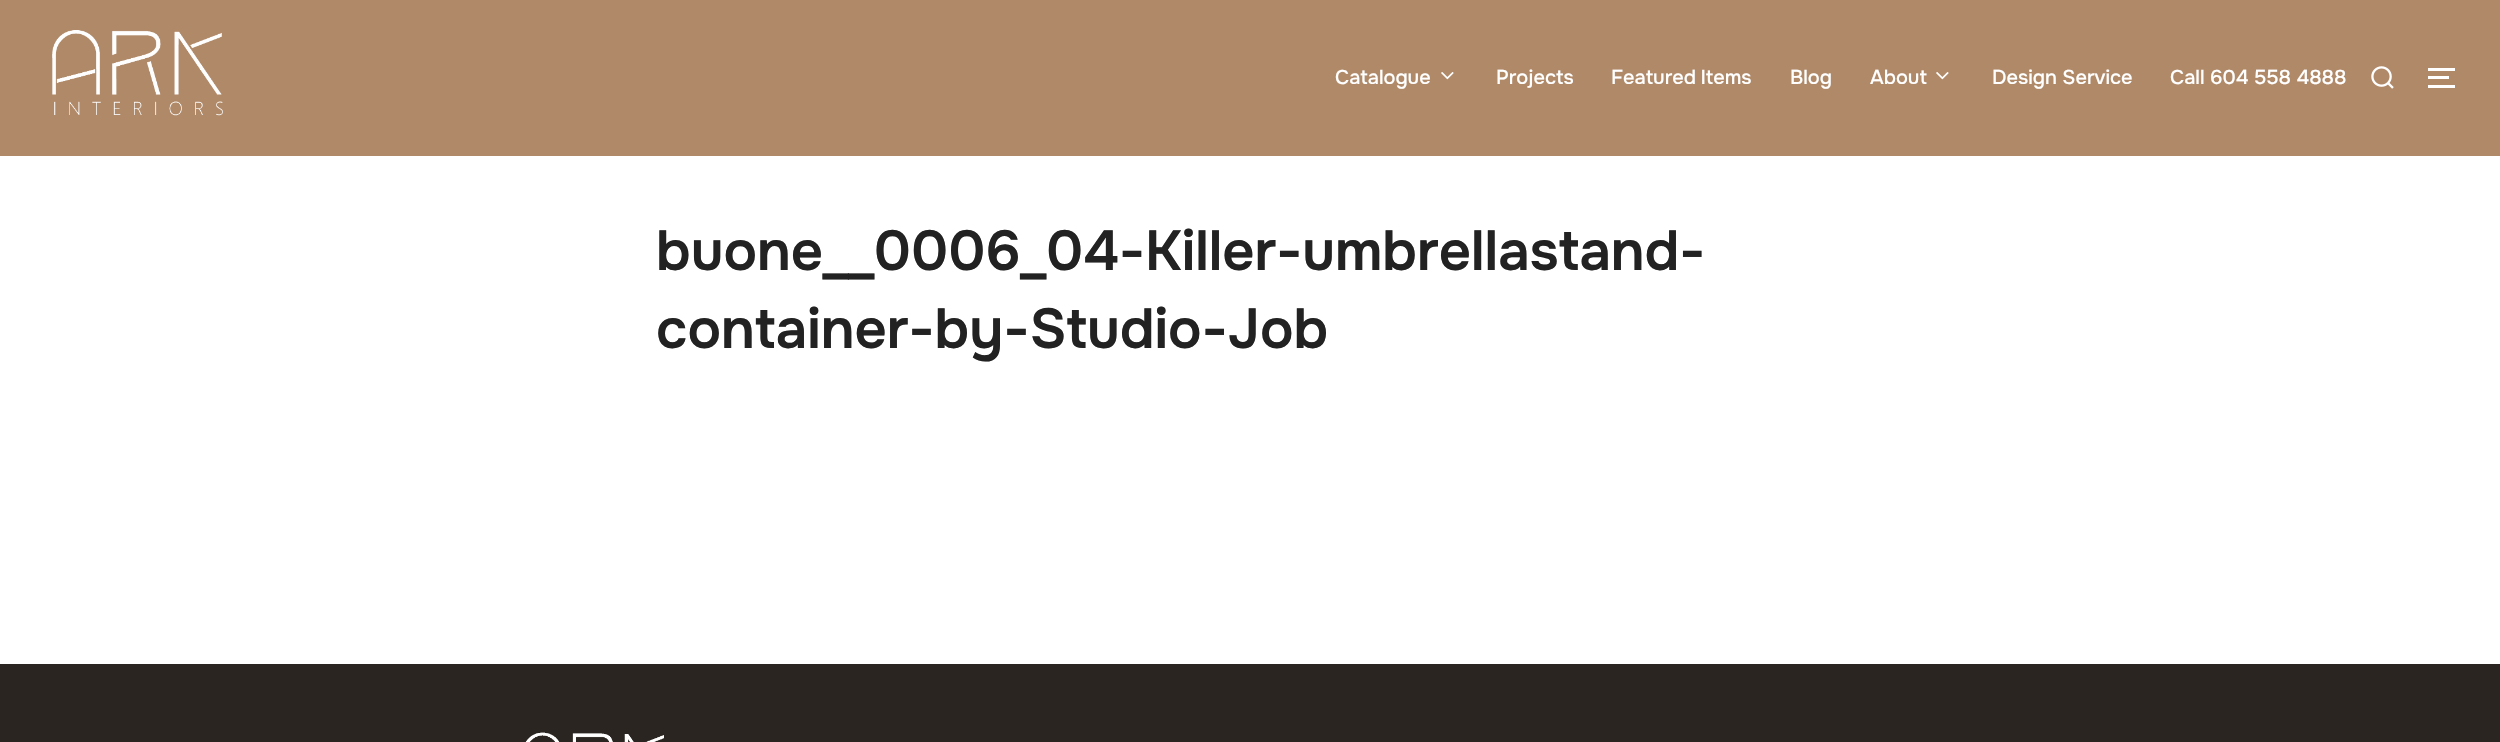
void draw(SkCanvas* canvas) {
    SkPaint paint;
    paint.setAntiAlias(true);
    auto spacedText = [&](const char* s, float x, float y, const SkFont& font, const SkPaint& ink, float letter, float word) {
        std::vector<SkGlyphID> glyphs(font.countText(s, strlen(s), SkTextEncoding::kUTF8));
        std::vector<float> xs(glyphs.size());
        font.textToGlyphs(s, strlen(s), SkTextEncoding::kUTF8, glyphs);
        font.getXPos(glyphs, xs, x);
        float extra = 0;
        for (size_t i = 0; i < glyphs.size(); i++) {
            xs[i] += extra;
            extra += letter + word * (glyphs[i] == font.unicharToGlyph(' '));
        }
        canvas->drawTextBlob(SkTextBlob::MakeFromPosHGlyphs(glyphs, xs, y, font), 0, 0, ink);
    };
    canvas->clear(0xFFFFFFFF);
    paint.setColor(0xFFB08968);
    canvas->drawRect(SkRect::MakeXYWH(0, 0, 2500, 156), paint);
    canvas->drawImageRect(SkImages::DeferredFromEncodedData(SkData::MakeFromFileName("img1.png")), SkRect::MakeXYWH(52, 30, 171, 86), SkSamplingOptions());
    SkFont font1(fontMgr->matchFamilyStyle("Onest", SkFontStyle(500, SkFontStyle::kNormal_Width, SkFontStyle::kUpright_Slant)), 20);
    font1.setSubpixel(true);
    paint.setColor(0xFFFFFFFF);
    canvas->drawString("Catalogue", 1335, 84, font1, paint);
    canvas->drawImageRect(SkImages::DeferredFromEncodedData(SkData::MakeFromFileName("img2.png")), SkRect::MakeXYWH(1441, 72, 13, 8), SkSamplingOptions());
    canvas->drawString("Projects", 1496, 84, font1, paint);
    spacedText("Featured Items", 1611, 84, font1, paint, 0, -1);
    canvas->drawString("Blog", 1790, 84, font1, paint);
    canvas->drawString("About", 1870, 84, font1, paint);
    canvas->drawImageRect(SkImages::DeferredFromEncodedData(SkData::MakeFromFileName("img2.png")), SkRect::MakeXYWH(1936, 72, 13, 8), SkSamplingOptions());
    canvas->drawString("Design Service", 1992, 84, font1, paint);
    canvas->drawString("Call 604 558 4888", 2170, 84, font1, paint);
    canvas->drawImageRect(SkImages::DeferredFromEncodedData(SkData::MakeFromFileName("img3.png")), SkRect::MakeXYWH(2371, 66, 23, 23), SkSamplingOptions());
    canvas->drawRect(SkRect::MakeXYWH(2428, 68, 27, 3), paint);
    canvas->drawRect(SkRect::MakeXYWH(2428, 76, 21, 3), paint);
    canvas->drawRect(SkRect::MakeXYWH(2428, 85, 27, 3), paint);
    SkFont font2(fontMgr->matchFamilyStyle("Onest", SkFontStyle(600, SkFontStyle::kNormal_Width, SkFontStyle::kUpright_Slant)), 56.25f);
    font2.setSubpixel(true);
    paint.setColor(0xFF222222);
    canvas->drawString("buone__0006_04-Killer-umbrellastand-", 656, 270, font2, paint);
    canvas->drawString("container-by-Studio-Job", 656, 348, font2, paint);
    paint.setColor(0xFF2A2520);
    canvas->drawRect(SkRect::MakeXYWH(0, 664, 2500, 78), paint);
    canvas->drawImageRect(SkImages::DeferredFromEncodedData(SkData::MakeFromFileName("img4.png")), SkRect::MakeXYWH(525, 732, 139, 10), SkSamplingOptions());
}
